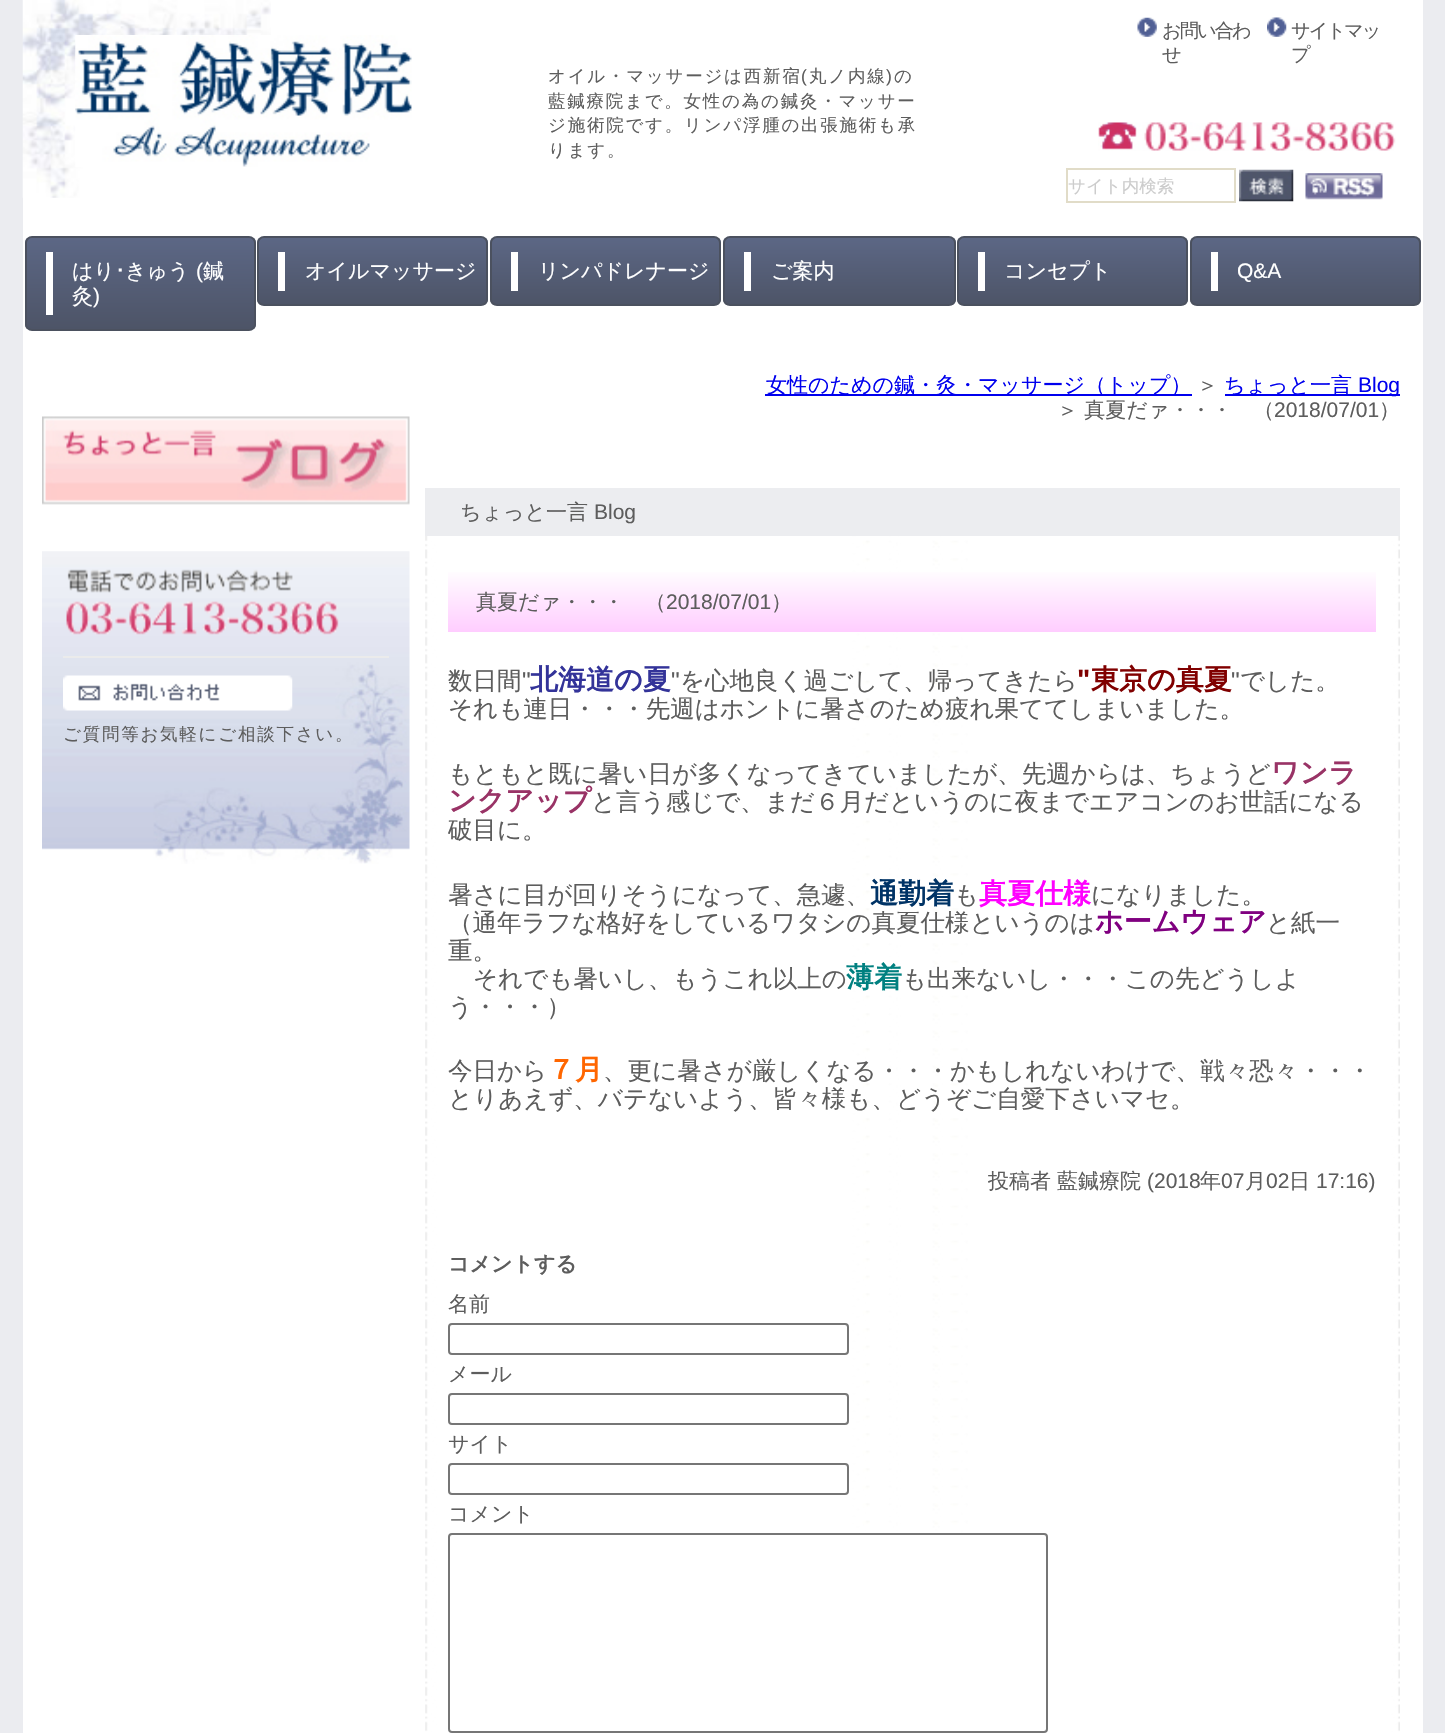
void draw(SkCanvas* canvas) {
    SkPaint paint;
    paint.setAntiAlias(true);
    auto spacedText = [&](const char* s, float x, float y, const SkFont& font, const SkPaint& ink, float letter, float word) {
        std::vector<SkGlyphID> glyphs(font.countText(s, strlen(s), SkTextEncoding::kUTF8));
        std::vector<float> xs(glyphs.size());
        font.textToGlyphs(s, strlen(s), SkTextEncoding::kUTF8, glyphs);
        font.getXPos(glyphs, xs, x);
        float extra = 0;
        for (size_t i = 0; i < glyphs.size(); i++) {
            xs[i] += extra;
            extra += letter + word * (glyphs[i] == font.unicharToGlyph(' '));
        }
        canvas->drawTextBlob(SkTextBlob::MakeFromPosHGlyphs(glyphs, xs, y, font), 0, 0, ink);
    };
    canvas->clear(0xFFEBECF0);
    paint.setColor(0xFFFFFFFF);
    canvas->drawRect(SkRect::MakeXYWH(23, 0, 1400, 1733), paint);
    canvas->drawImageRect(SkImages::DeferredFromEncodedData(SkData::MakeFromFileName("img1.png")), SkRect::MakeXYWH(22, 0, 249, 198), SkSamplingOptions());
    canvas->drawImageRect(SkImages::DeferredFromEncodedData(SkData::MakeFromFileName("img2.png")), SkRect::MakeXYWH(75, 35, 337, 132), SkSamplingOptions());
    SkFont font1(fontMgr->matchFamilyStyle("WenQuanYi Zen Hei", SkFontStyle(500, SkFontStyle::kNormal_Width, SkFontStyle::kUpright_Slant)), 17.5f);
    font1.setSubpixel(true);
    paint.setColor(0xFF5D5D5D);
    spacedText("オイル・マッサージは西新宿", 548, 82, font1, paint, 1.75f, 0);
    SkFont font2(fontMgr->matchFamilyStyle("Liberation Sans", SkFontStyle::Normal()), 17.5f);
    font2.setSubpixel(true);
    spacedText("(", 801, 82, font2, paint, 1.75f, 0);
    spacedText("丸ノ内線", 809, 82, font1, paint, 1.75f, 0);
    spacedText(")", 886, 82, font2, paint, 1.75f, 0);
    spacedText("の", 894, 82, font1, paint, 1.75f, 0);
    spacedText("藍鍼療院まで。女性の為の鍼灸・マッサー", 548, 107, font1, paint, 1.75f, 0);
    spacedText("ジ施術院です。リンパ浮腫の出張施術も承", 548, 131, font1, paint, 1.75f, 0);
    spacedText("ります。", 548, 156, font1, paint, 1.75f, 0);
    canvas->drawImageRect(SkImages::DeferredFromEncodedData(SkData::MakeFromFileName("img3.png")), SkRect::MakeXYWH(1137, 17, 20, 20), SkSamplingOptions());
    SkFont font3(fontMgr->matchFamilyStyle("WenQuanYi Zen Hei", SkFontStyle(500, SkFontStyle::kNormal_Width, SkFontStyle::kUpright_Slant)), 19.25f);
    font3.setSubpixel(true);
    spacedText("お問い合わ", 1162, 37, font3, paint, -2, 0);
    spacedText("せ", 1162, 61, font3, paint, -2, 0);
    canvas->drawImageRect(SkImages::DeferredFromEncodedData(SkData::MakeFromFileName("img4.png")), SkRect::MakeXYWH(1267, 17, 20, 20), SkSamplingOptions());
    spacedText("サイトマッ", 1291, 37, font3, paint, -2, 0);
    spacedText("プ", 1291, 61, font3, paint, -2, 0);
    canvas->drawImageRect(SkImages::DeferredFromEncodedData(SkData::MakeFromFileName("img5.png")), SkRect::MakeXYWH(1098, 122, 298, 29), SkSamplingOptions());
    paint.setStyle(SkPaint::kStroke_Style);
    paint.setStrokeWidth(2);
    paint.setColor(0xFFE1DCC8);
    canvas->drawRect(SkRect::MakeXYWH(1067, 169, 168, 33), paint);
    paint.setStyle(SkPaint::kFill_Style);
    paint.setColor(0xFFCCCCCC);
    canvas->drawString("サイト内検索", 1068, 192, font1, paint);
    canvas->drawImageRect(SkImages::DeferredFromEncodedData(SkData::MakeFromFileName("img6.png")), SkRect::MakeXYWH(1239, 169, 55, 33), SkSamplingOptions());
    canvas->drawImageRect(SkImages::DeferredFromEncodedData(SkData::MakeFromFileName("img7.png")), SkRect::MakeXYWH(1305, 173, 78, 27), SkSamplingOptions());
    canvas->save();
    canvas->clipPath(SkPathBuilder().moveTo(32, 236).lineTo(249, 236).cubicTo(253, 236, 256, 239, 256, 243).lineTo(256, 324).cubicTo(256, 328, 253, 331, 249, 331).lineTo(32, 331).cubicTo(28, 331, 25, 328, 25, 324).lineTo(25, 243).cubicTo(25, 239, 28, 236, 32, 236).close().detach(), true);
    {
        const SkColor colors[] = {0xFF5C6785, 0xFF4D5467};
        const float stops[] = {0, 1};
        const SkPoint ends[] = {{140, 238}, {140, 329}};
        paint.setShader(SkGradientShader::MakeLinear(ends, colors, stops, 2, SkTileMode::kClamp));
        paint.setAlpha(255);
    }
    canvas->drawRect(SkRect::MakeXYWH(25, 238, 231, 91), paint);
    canvas->restore();
    paint.setStyle(SkPaint::kStroke_Style);
    paint.setShader(nullptr);
    paint.setColor(0xFF4B515F);
    canvas->drawRoundRect(SkRect::MakeXYWH(26, 237, 229, 93), 6, 6, paint);
    paint.setStyle(SkPaint::kFill_Style);
    paint.setColor(0xFFFFFFFF);
    canvas->drawRect(SkRect::MakeXYWH(46, 252, 7, 63), paint);
    SkFont font4(fontMgr->matchFamilyStyle("WenQuanYi Zen Hei", SkFontStyle(500, SkFontStyle::kNormal_Width, SkFontStyle::kUpright_Slant)), 21);
    font4.setSubpixel(true);
    canvas->drawString("はり", 72, 278, font4, paint);
    SkFont font5(fontMgr->matchFamilyStyle("IPAPGothic", SkFontStyle::Normal()), 21);
    font5.setSubpixel(true);
    canvas->drawString("･", 115, 278, font5, paint);
    canvas->drawString("きゅう", 125, 278, font4, paint);
    SkFont font6(fontMgr->matchFamilyStyle("Liberation Sans", SkFontStyle::Normal()), 21);
    font6.setSubpixel(true);
    canvas->drawString("(", 196, 278, font6, paint);
    canvas->drawString("鍼", 203, 278, font4, paint);
    canvas->drawString("灸", 72, 303, font4, paint);
    canvas->drawString(")", 93, 303, font6, paint);
    canvas->save();
    canvas->clipPath(SkPathBuilder().moveTo(264, 236).lineTo(481, 236).cubicTo(485, 236, 488, 239, 488, 243).lineTo(488, 299).cubicTo(488, 303, 485, 306, 481, 306).lineTo(264, 306).cubicTo(260, 306, 257, 303, 257, 299).lineTo(257, 243).cubicTo(257, 239, 260, 236, 264, 236).close().detach(), true);
    {
        const SkColor colors[] = {0xFF5C6785, 0xFF4D5467};
        const float stops[] = {0, 1};
        const SkPoint ends[] = {{373, 238}, {373, 305}};
        paint.setShader(SkGradientShader::MakeLinear(ends, colors, stops, 2, SkTileMode::kClamp));
        paint.setAlpha(255);
    }
    canvas->drawRect(SkRect::MakeXYWH(257, 238, 231, 67), paint);
    canvas->restore();
    paint.setStyle(SkPaint::kStroke_Style);
    paint.setShader(nullptr);
    paint.setColor(0xFF4B515F);
    canvas->drawRoundRect(SkRect::MakeXYWH(258, 237, 229, 68), 6, 6, paint);
    paint.setStyle(SkPaint::kFill_Style);
    paint.setColor(0xFFFFFFFF);
    canvas->drawRect(SkRect::MakeXYWH(278, 252, 7, 39), paint);
    canvas->drawString("オイルマッサージ", 305, 278, font4, paint);
    canvas->save();
    canvas->clipPath(SkPathBuilder().moveTo(497, 236).lineTo(714, 236).cubicTo(718, 236, 721, 239, 721, 243).lineTo(721, 299).cubicTo(721, 303, 718, 306, 714, 306).lineTo(497, 306).cubicTo(493, 306, 490, 303, 490, 299).lineTo(490, 243).cubicTo(490, 239, 493, 236, 497, 236).close().detach(), true);
    {
        const SkColor colors[] = {0xFF5C6785, 0xFF4D5467};
        const float stops[] = {0, 1};
        const SkPoint ends[] = {{606, 238}, {606, 305}};
        paint.setShader(SkGradientShader::MakeLinear(ends, colors, stops, 2, SkTileMode::kClamp));
        paint.setAlpha(255);
    }
    canvas->drawRect(SkRect::MakeXYWH(490, 238, 231, 67), paint);
    canvas->restore();
    paint.setStyle(SkPaint::kStroke_Style);
    paint.setShader(nullptr);
    paint.setColor(0xFF4B515F);
    canvas->drawRoundRect(SkRect::MakeXYWH(491, 237, 229, 68), 6, 6, paint);
    paint.setStyle(SkPaint::kFill_Style);
    paint.setColor(0xFFFFFFFF);
    canvas->drawRect(SkRect::MakeXYWH(511, 252, 7, 39), paint);
    canvas->drawString("リンパドレナージ", 538, 278, font4, paint);
    canvas->save();
    canvas->clipPath(SkPathBuilder().moveTo(730, 236).lineTo(949, 236).cubicTo(953, 236, 956, 239, 956, 243).lineTo(956, 299).cubicTo(956, 303, 953, 306, 949, 306).lineTo(730, 306).cubicTo(726, 306, 723, 303, 723, 299).lineTo(723, 243).cubicTo(723, 239, 726, 236, 730, 236).close().detach(), true);
    {
        const SkColor colors[] = {0xFF5C6785, 0xFF4D5467};
        const float stops[] = {0, 1};
        const SkPoint ends[] = {{839, 238}, {839, 305}};
        paint.setShader(SkGradientShader::MakeLinear(ends, colors, stops, 2, SkTileMode::kClamp));
        paint.setAlpha(255);
    }
    canvas->drawRect(SkRect::MakeXYWH(723, 238, 233, 67), paint);
    canvas->restore();
    paint.setStyle(SkPaint::kStroke_Style);
    paint.setShader(nullptr);
    paint.setColor(0xFF4B515F);
    canvas->drawRoundRect(SkRect::MakeXYWH(724, 237, 231, 68), 6, 6, paint);
    paint.setStyle(SkPaint::kFill_Style);
    paint.setColor(0xFFFFFFFF);
    canvas->drawRect(SkRect::MakeXYWH(744, 252, 7, 39), paint);
    canvas->drawString("ご案内", 771, 278, font4, paint);
    canvas->save();
    canvas->clipPath(SkPathBuilder().moveTo(964, 236).lineTo(1181, 236).cubicTo(1185, 236, 1188, 239, 1188, 243).lineTo(1188, 299).cubicTo(1188, 303, 1185, 306, 1181, 306).lineTo(964, 306).cubicTo(960, 306, 957, 303, 957, 299).lineTo(957, 243).cubicTo(957, 239, 960, 236, 964, 236).close().detach(), true);
    {
        const SkColor colors[] = {0xFF5C6785, 0xFF4D5467};
        const float stops[] = {0, 1};
        const SkPoint ends[] = {{1073, 238}, {1073, 305}};
        paint.setShader(SkGradientShader::MakeLinear(ends, colors, stops, 2, SkTileMode::kClamp));
        paint.setAlpha(255);
    }
    canvas->drawRect(SkRect::MakeXYWH(957, 238, 231, 67), paint);
    canvas->restore();
    paint.setStyle(SkPaint::kStroke_Style);
    paint.setShader(nullptr);
    paint.setColor(0xFF4B515F);
    canvas->drawRoundRect(SkRect::MakeXYWH(958, 237, 229, 68), 6, 6, paint);
    paint.setStyle(SkPaint::kFill_Style);
    paint.setColor(0xFFFFFFFF);
    canvas->drawRect(SkRect::MakeXYWH(978, 252, 7, 39), paint);
    canvas->drawString("コンセプト", 1004, 278, font4, paint);
    canvas->save();
    canvas->clipPath(SkPathBuilder().moveTo(1197, 236).lineTo(1414, 236).cubicTo(1418, 236, 1421, 239, 1421, 243).lineTo(1421, 299).cubicTo(1421, 303, 1418, 306, 1414, 306).lineTo(1197, 306).cubicTo(1193, 306, 1190, 303, 1190, 299).lineTo(1190, 243).cubicTo(1190, 239, 1193, 236, 1197, 236).close().detach(), true);
    {
        const SkColor colors[] = {0xFF5C6785, 0xFF4D5467};
        const float stops[] = {0, 1};
        const SkPoint ends[] = {{1306, 238}, {1306, 305}};
        paint.setShader(SkGradientShader::MakeLinear(ends, colors, stops, 2, SkTileMode::kClamp));
        paint.setAlpha(255);
    }
    canvas->drawRect(SkRect::MakeXYWH(1190, 238, 231, 67), paint);
    canvas->restore();
    paint.setStyle(SkPaint::kStroke_Style);
    paint.setShader(nullptr);
    paint.setColor(0xFF4B515F);
    canvas->drawRoundRect(SkRect::MakeXYWH(1191, 237, 229, 68), 6, 6, paint);
    paint.setStyle(SkPaint::kFill_Style);
    paint.setColor(0xFFFFFFFF);
    canvas->drawRect(SkRect::MakeXYWH(1211, 252, 7, 39), paint);
    canvas->drawString("Q&A", 1237, 278, font6, paint);
    canvas->drawImageRect(SkImages::DeferredFromEncodedData(SkData::MakeFromFileName("img8.png")), SkRect::MakeXYWH(42, 416, 368, 89), SkSamplingOptions());
    canvas->drawImageRect(SkImages::DeferredFromEncodedData(SkData::MakeFromFileName("img9.png")), SkRect::MakeXYWH(42, 551, 368, 313), SkSamplingOptions());
    paint.setColor(0xFFEBEBEB);
    canvas->drawRect(SkRect::MakeXYWH(63, 656, 326, 2), paint);
    canvas->drawImageRect(SkImages::DeferredFromEncodedData(SkData::MakeFromFileName("img10.png")), SkRect::MakeXYWH(66, 569, 273, 66), SkSamplingOptions());
    canvas->drawImageRect(SkImages::DeferredFromEncodedData(SkData::MakeFromFileName("img11.png")), SkRect::MakeXYWH(63, 675, 230, 36), SkSamplingOptions());
    paint.setColor(0xFF5D5D5D);
    spacedText("ご質問等お気軽にご相談下さい。", 63, 740, font1, paint, 1.75f, 0);
    paint.setColor(0xFF0000EE);
    canvas->drawRect(SkRect::MakeXYWH(765, 394, 427, 2), paint);
    canvas->drawString("女性のための鍼・灸・マッサージ（トップ）", 766, 392, font4, paint);
    paint.setColor(0xFF5D5D5D);
    canvas->drawString("＞", 1197, 392, font4, paint);
    paint.setColor(0xFF0000EE);
    canvas->drawRect(SkRect::MakeXYWH(1225, 394, 175, 2), paint);
    canvas->drawString("ちょっと一言", 1224, 392, font4, paint);
    canvas->drawString("Blog", 1358, 392, font6, paint);
    paint.setColor(0xFF5D5D5D);
    canvas->drawString("＞ 真夏だァ・・・　（", 1057, 417, font4, paint);
    canvas->drawString("2018/07/01", 1274, 417, font6, paint);
    canvas->drawString("）", 1379, 417, font4, paint);
    canvas->drawImageRect(SkImages::DeferredFromEncodedData(SkData::MakeFromFileName("img12.png")), SkRect::MakeXYWH(425, 536, 975, 1197), SkSamplingOptions());
    paint.setColor(0xFFECEDF0);
    canvas->drawRect(SkRect::MakeXYWH(425, 488, 975, 48), paint);
    paint.setColor(0xFF5D5D5D);
    canvas->drawString("ちょっと一言", 460, 519, font4, paint);
    canvas->drawString("Blog", 594, 519, font6, paint);
    {
        const SkColor colors[] = {0xFFFFFEFF, 0xFFFFCDFF};
        const float stops[] = {0, 1};
        const SkPoint ends[] = {{912, 570}, {912, 632}};
        paint.setShader(SkGradientShader::MakeLinear(ends, colors, stops, 2, SkTileMode::kClamp));
        paint.setAlpha(255);
    }
    canvas->drawRect(SkRect::MakeXYWH(448, 572, 928, 60), paint);
    paint.setShader(nullptr);
    paint.setColor(0xFF5D5D5D);
    canvas->drawString("真夏だァ・・・　（", 476, 609, font4, paint);
    canvas->drawString("2018/07/01", 666, 609, font6, paint);
    canvas->drawString("）", 771, 609, font4, paint);
    SkFont font7(fontMgr->matchFamilyStyle("WenQuanYi Zen Hei", SkFontStyle(500, SkFontStyle::kNormal_Width, SkFontStyle::kUpright_Slant)), 24.5f);
    font7.setSubpixel(true);
    canvas->drawString("数日間", 448, 689, font7, paint);
    SkFont font8(fontMgr->matchFamilyStyle("Liberation Sans", SkFontStyle::Normal()), 24.5f);
    font8.setSubpixel(true);
    canvas->drawString("\"", 522, 689, font8, paint);
    SkFont font9(fontMgr->matchFamilyStyle("WenQuanYi Zen Hei", SkFontStyle::Bold()), 28);
    font9.setSubpixel(true);
    paint.setColor(0xFF333399);
    canvas->drawString("北海道の夏", 530, 689, font9, paint);
    paint.setColor(0xFF5D5D5D);
    canvas->drawString("\"", 671, 689, font8, paint);
    canvas->drawString("を心地良く過ごして、帰ってきたら", 680, 689, font7, paint);
    SkFont font10(fontMgr->matchFamilyStyle("Liberation Sans", SkFontStyle::Bold()), 28);
    font10.setSubpixel(true);
    paint.setColor(0xFF800000);
    canvas->drawString("\"", 1077, 689, font10, paint);
    canvas->drawString("東京の真夏", 1091, 689, font9, paint);
    paint.setColor(0xFF5D5D5D);
    canvas->drawString("\"", 1231, 689, font8, paint);
    canvas->drawString("でした。", 1240, 689, font7, paint);
    canvas->drawString("それも連日・・・先週はホントに暑さのため疲れ果ててしまいました。", 448, 717, font7, paint);
    canvas->drawString("もともと既に暑い日が多くなってきていましたが、先週からは、ちょうど", 448, 782, font7, paint);
    paint.setColor(0xFF993366);
    canvas->drawString("ワンラ", 1271, 782, font9, paint);
    canvas->drawString("ンクアップ", 448, 810, font9, paint);
    paint.setColor(0xFF5D5D5D);
    canvas->drawString("と言う感じで、まだ６月だというのに夜までエアコンのお世話になる", 591, 810, font7, paint);
    canvas->drawString("破目に。", 448, 838, font7, paint);
    canvas->drawString("暑さに目が回りそうになって、急遽、", 448, 903, font7, paint);
    paint.setColor(0xFF003366);
    canvas->drawString("通勤着", 870, 903, font9, paint);
    paint.setColor(0xFF5D5D5D);
    canvas->drawString("も", 954, 903, font7, paint);
    paint.setColor(0xFFFF00FF);
    canvas->drawString("真夏仕様", 979, 903, font9, paint);
    paint.setColor(0xFF5D5D5D);
    canvas->drawString("になりました。", 1091, 903, font7, paint);
    canvas->drawString("（通年ラフな格好をしているワタシの真夏仕様というのは", 448, 931, font7, paint);
    paint.setColor(0xFF800080);
    canvas->drawString("ホームウェア", 1095, 931, font9, paint);
    paint.setColor(0xFF5D5D5D);
    canvas->drawString("と紙一", 1266, 931, font7, paint);
    canvas->drawString("重。", 448, 959, font7, paint);
    canvas->drawString("それでも暑いし、もうこれ以上の", 473, 987, font7, paint);
    paint.setColor(0xFF008080);
    canvas->drawString("薄着", 846, 987, font9, paint);
    paint.setColor(0xFF5D5D5D);
    canvas->drawString("も出来ないし・・・この先どうしよ", 902, 987, font7, paint);
    canvas->drawString("う・・・）", 448, 1015, font7, paint);
    canvas->drawString("今日から", 448, 1079, font7, paint);
    paint.setColor(0xFFFF6600);
    canvas->drawString("７月", 547, 1079, font9, paint);
    paint.setColor(0xFF5D5D5D);
    canvas->drawString("、更に暑さが厳しくなる・・・かもしれないわけで、戦々恐々・・・", 603, 1079, font7, paint);
    canvas->drawString("とりあえず、バテないよう、皆々様も、どうぞご自愛下さいマセ。", 448, 1107, font7, paint);
    canvas->drawString("投稿者", 988, 1188, font4, paint);
    canvas->drawString("藍鍼療院", 1057, 1188, font4, paint);
    canvas->drawString("(2018", 1147, 1188, font6, paint);
    canvas->drawString("年", 1200, 1188, font4, paint);
    canvas->drawString("07", 1221, 1188, font6, paint);
    canvas->drawString("月", 1245, 1188, font4, paint);
    canvas->drawString("02", 1266, 1188, font6, paint);
    canvas->drawString("日", 1289, 1188, font4, paint);
    canvas->drawString("17:16)", 1316, 1188, font6, paint);
    SkFont font11(fontMgr->matchFamilyStyle("WenQuanYi Zen Hei", SkFontStyle::Bold()), 21);
    font11.setSubpixel(true);
    canvas->drawString("コメントする", 448, 1271, font11, paint);
    canvas->drawString("名前", 448, 1311, font4, paint);
    paint.setStyle(SkPaint::kStroke_Style);
    paint.setColor(0xFF767676);
    canvas->drawRoundRect(SkRect::MakeXYWH(449, 1324, 399, 30), 3, 3, paint);
    paint.setStyle(SkPaint::kFill_Style);
    paint.setColor(0xFF5D5D5D);
    canvas->drawString("メール", 448, 1381, font4, paint);
    paint.setStyle(SkPaint::kStroke_Style);
    paint.setColor(0xFF767676);
    canvas->drawRoundRect(SkRect::MakeXYWH(449, 1394, 399, 30), 3, 3, paint);
    paint.setStyle(SkPaint::kFill_Style);
    paint.setColor(0xFF5D5D5D);
    canvas->drawString("サイト", 448, 1451, font4, paint);
    paint.setStyle(SkPaint::kStroke_Style);
    paint.setColor(0xFF767676);
    canvas->drawRoundRect(SkRect::MakeXYWH(449, 1464, 399, 30), 3, 3, paint);
    paint.setStyle(SkPaint::kFill_Style);
    paint.setColor(0xFF5D5D5D);
    canvas->drawString("コメント", 448, 1521, font4, paint);
    paint.setColor(0xFFFFFFFF);
    canvas->drawRoundRect(SkRect::MakeXYWH(449, 1534, 598, 198), 3, 3, paint);
    paint.setStyle(SkPaint::kStroke_Style);
    paint.setColor(0xFF767676);
    canvas->drawRoundRect(SkRect::MakeXYWH(449, 1534, 598, 198), 3, 3, paint);
}
